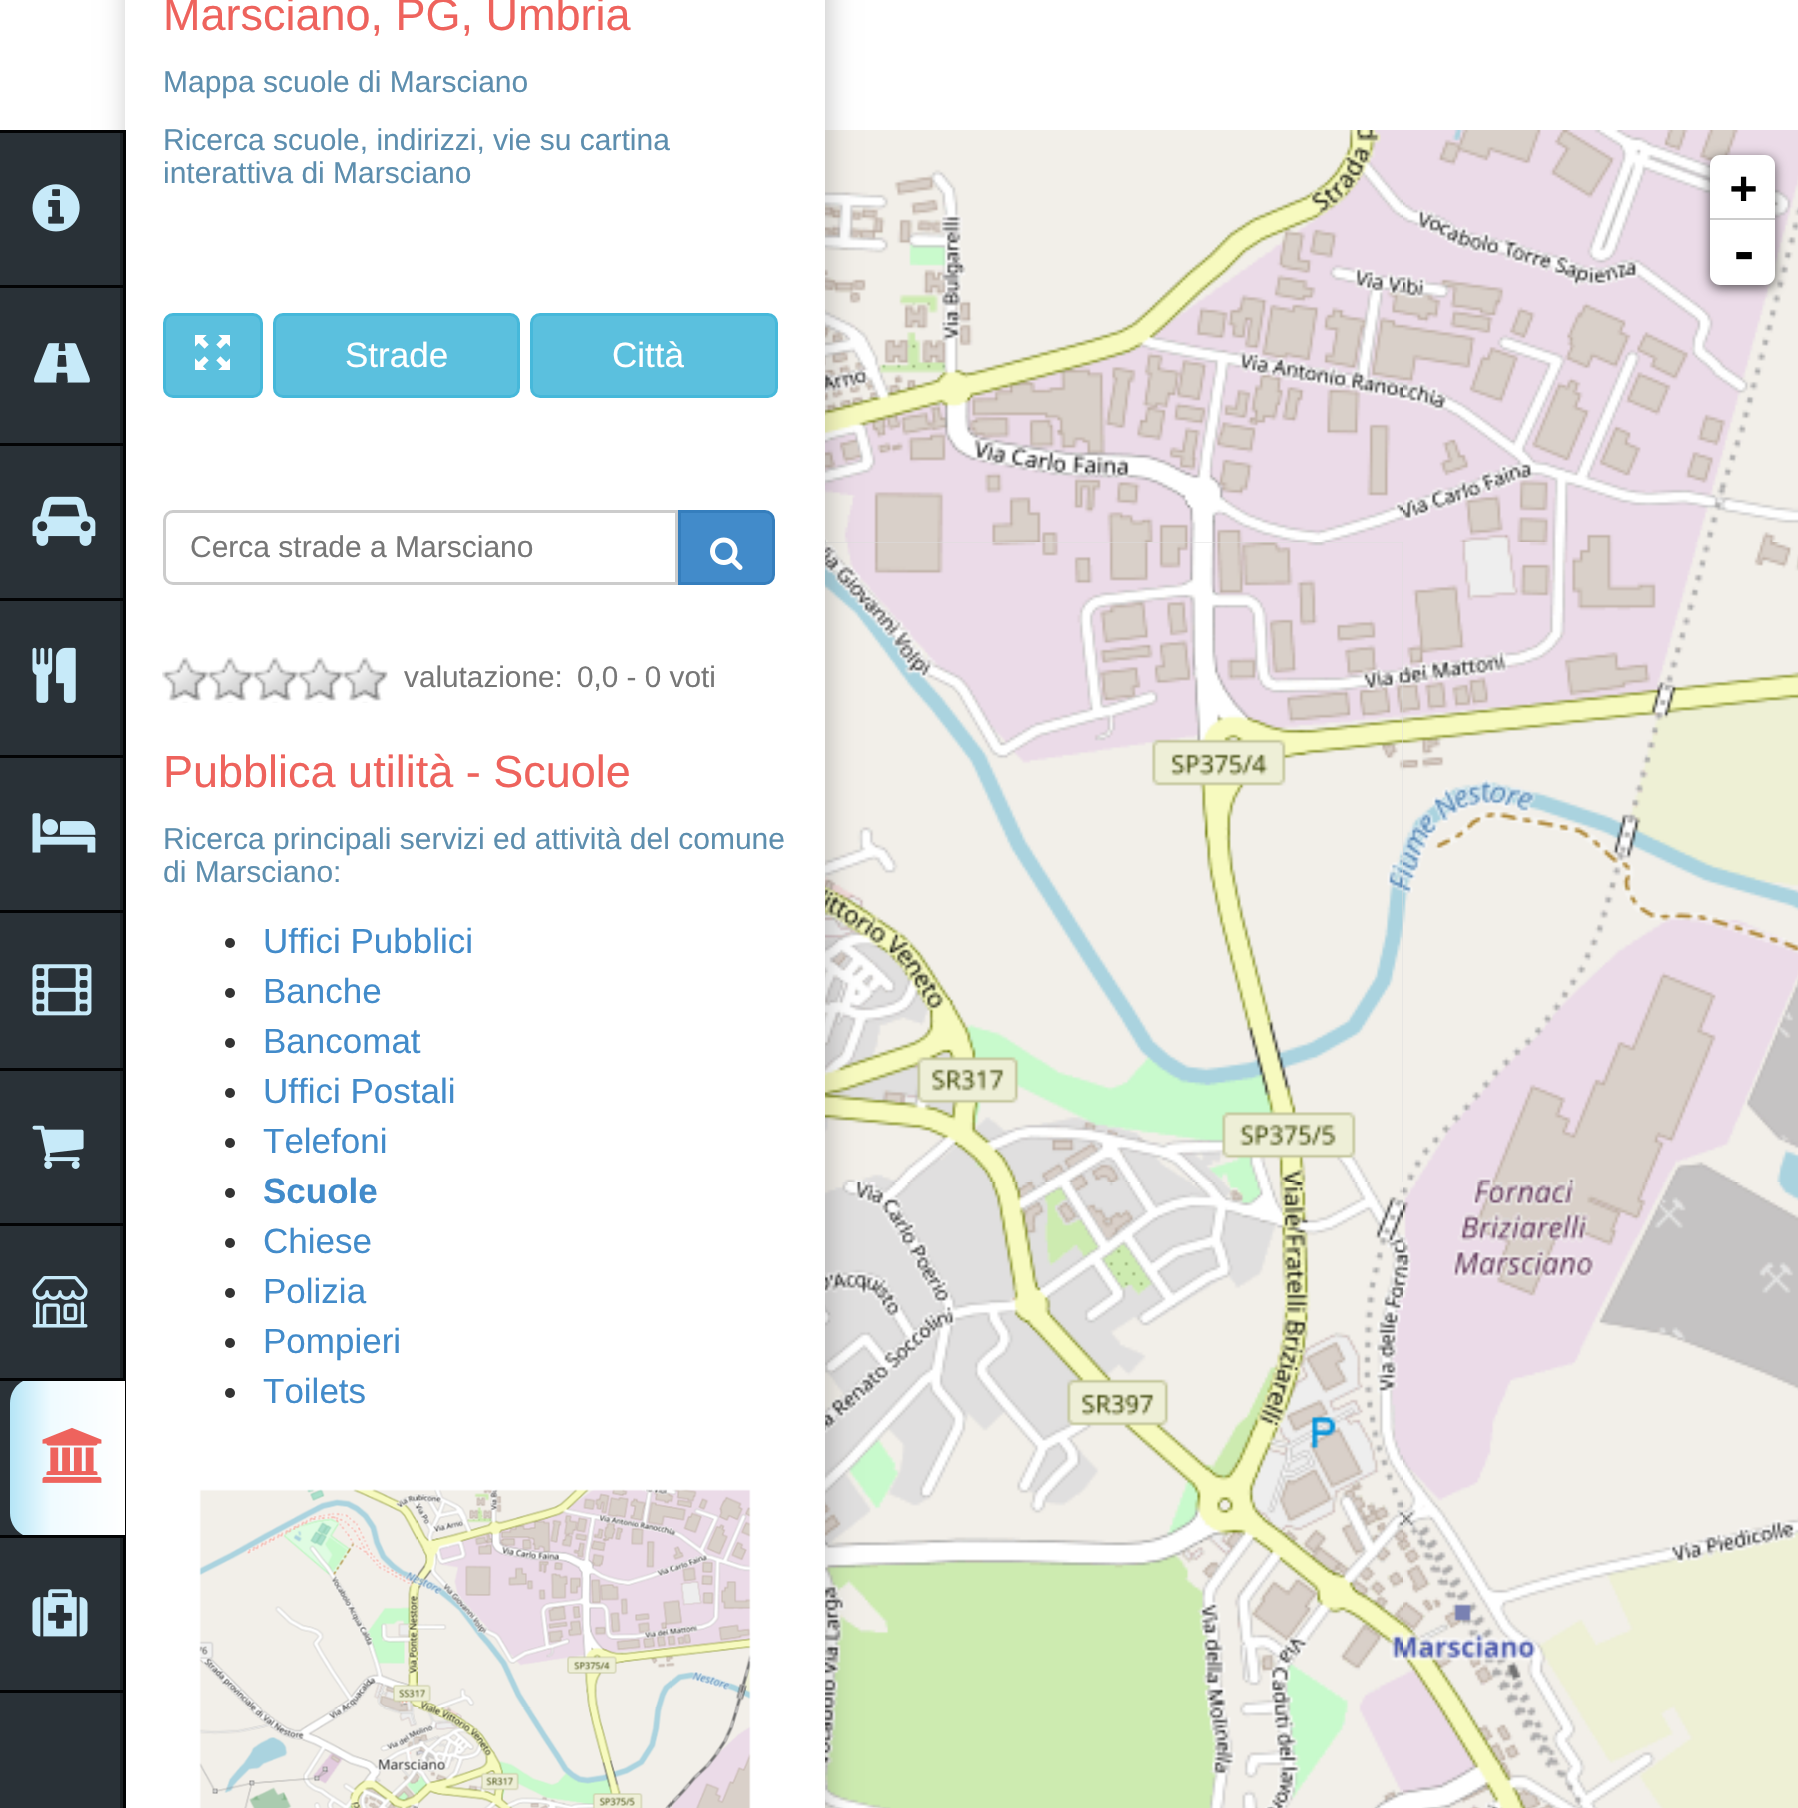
void draw(SkCanvas* canvas) {
    SkPaint paint;
    paint.setAntiAlias(true);
    canvas->clear(0xFFFFFFFF);
    paint.setColor(0xFFDDDDDD);
    canvas->drawRect(SkRect::MakeXYWH(825, 542, 578, 640), paint);
    canvas->drawImageRect(SkImages::DeferredFromEncodedData(SkData::MakeFromFileName("img15.png")), SkRect::MakeXYWH(825, 130, 578, 412), SkSamplingOptions());
    canvas->drawImageRect(SkImages::DeferredFromEncodedData(SkData::MakeFromFileName("img17.png")), SkRect::MakeXYWH(825, 542, 578, 640), SkSamplingOptions());
    canvas->drawImageRect(SkImages::DeferredFromEncodedData(SkData::MakeFromFileName("img19.png")), SkRect::MakeXYWH(825, 1182, 578, 626), SkSamplingOptions());
    paint.setColor(0x38000000);
    paint.setMaskFilter(SkMaskFilter::MakeBlur(kNormal_SkBlurStyle, 12.5f));
    canvas->drawRect(SkRect::MakeXYWH(128, -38, 700, 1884), paint);
    paint.setMaskFilter(nullptr);
    paint.setColor(0xFF293137);
    canvas->drawRect(SkRect::MakeXYWH(0, 133, 120, 1675), paint);
    paint.setColor(0xFF1C2125);
    canvas->drawRect(SkRect::MakeXYWH(120, 130, 3, 1678), paint);
    paint.setColor(0xFFFFFFFF);
    canvas->drawRect(SkRect::MakeXYWH(125, 0, 700, 1808), paint);
    paint.setColor(0xFF030405);
    canvas->drawRect(SkRect::MakeXYWH(123, 130, 3, 1678), paint);
    canvas->drawRect(SkRect::MakeXYWH(0, 130, 123, 3), paint);
    canvas->drawRect(SkRect::MakeXYWH(0, 285, 123, 3), paint);
    canvas->drawImageRect(SkImages::DeferredFromEncodedData(SkData::MakeFromFileName("img1.png")), SkRect::MakeXYWH(32, 184, 48, 48), SkSamplingOptions());
    canvas->drawRect(SkRect::MakeXYWH(0, 443, 123, 3), paint);
    canvas->drawImageRect(SkImages::DeferredFromEncodedData(SkData::MakeFromFileName("img2.png")), SkRect::MakeXYWH(34, 343, 56, 40), SkSamplingOptions());
    canvas->drawRect(SkRect::MakeXYWH(0, 598, 123, 3), paint);
    canvas->drawImageRect(SkImages::DeferredFromEncodedData(SkData::MakeFromFileName("img3.png")), SkRect::MakeXYWH(32, 496, 64, 50), SkSamplingOptions());
    canvas->drawRect(SkRect::MakeXYWH(0, 755, 123, 3), paint);
    canvas->drawImageRect(SkImages::DeferredFromEncodedData(SkData::MakeFromFileName("img4.png")), SkRect::MakeXYWH(32, 647, 44, 56), SkSamplingOptions());
    canvas->drawRect(SkRect::MakeXYWH(0, 910, 123, 3), paint);
    canvas->drawImageRect(SkImages::DeferredFromEncodedData(SkData::MakeFromFileName("img5.png")), SkRect::MakeXYWH(32, 813, 64, 40), SkSamplingOptions());
    canvas->drawRect(SkRect::MakeXYWH(0, 1068, 123, 3), paint);
    canvas->drawImageRect(SkImages::DeferredFromEncodedData(SkData::MakeFromFileName("img6.png")), SkRect::MakeXYWH(32, 964, 60, 52), SkSamplingOptions());
    canvas->drawRect(SkRect::MakeXYWH(0, 1223, 123, 3), paint);
    canvas->drawImageRect(SkImages::DeferredFromEncodedData(SkData::MakeFromFileName("img7.png")), SkRect::MakeXYWH(32, 1125, 52, 44), SkSamplingOptions());
    canvas->drawRect(SkRect::MakeXYWH(0, 1378, 23, 3), paint);
    canvas->drawImageRect(SkImages::DeferredFromEncodedData(SkData::MakeFromFileName("img8.png")), SkRect::MakeXYWH(32, 1276, 56, 52), SkSamplingOptions());
    {
        const SkColor colors[] = {0xFFB5E5F6, 0xFFF0FBFF, 0xFFFFFFFF};
        const float stops[] = {0, 0.36f, 1};
        const SkPoint ends[] = {{10, 1458}, {125, 1458}};
        paint.setShader(SkGradientShader::MakeLinear(ends, colors, stops, 3, SkTileMode::kClamp));
        paint.setAlpha(255);
    }
    canvas->drawPath(SkPathBuilder().moveTo(35, 1378).lineTo(125, 1378).lineTo(125, 1538).lineTo(35, 1538).cubicTo(21, 1538, 10, 1527, 10, 1513).lineTo(10, 1403).cubicTo(10, 1389, 21, 1378, 35, 1378).close().detach(), paint);
    paint.setShader(nullptr);
    paint.setColor(0xFF030405);
    canvas->drawRect(SkRect::MakeXYWH(23, 1378, 102, 3), paint);
    canvas->drawRect(SkRect::MakeXYWH(0, 1535, 125, 3), paint);
    canvas->drawImageRect(SkImages::DeferredFromEncodedData(SkData::MakeFromFileName("img9.png")), SkRect::MakeXYWH(42, 1427, 60, 56), SkSamplingOptions());
    canvas->drawRect(SkRect::MakeXYWH(0, 1690, 123, 3), paint);
    canvas->drawImageRect(SkImages::DeferredFromEncodedData(SkData::MakeFromFileName("img10.png")), SkRect::MakeXYWH(32, 1589, 56, 48), SkSamplingOptions());
    SkFont font1(fontMgr->matchFamilyStyle("Liberation Sans", SkFontStyle::Normal()), 45);
    font1.setSubpixel(true);
    paint.setColor(0xFFEE635D);
    canvas->drawString("Marsciano, PG, Umbria", 163, 30, font1, paint);
    SkFont font2(fontMgr->matchFamilyStyle("Liberation Sans", SkFontStyle::Normal()), 30);
    font2.setSubpixel(true);
    paint.setColor(0xFF5D8EAE);
    canvas->drawString("Mappa scuole di Marsciano", 163, 92, font2, paint);
    canvas->drawString("Ricerca scuole, indirizzi, vie su cartina", 163, 150, font2, paint);
    canvas->drawString("interattiva di Marsciano", 163, 183, font2, paint);
    paint.setColor(0xFF5BC0DE);
    canvas->drawRoundRect(SkRect::MakeXYWH(164.5f, 314.5f, 97, 82), 8.5f, 8.5f, paint);
    paint.setStyle(SkPaint::kStroke_Style);
    paint.setStrokeWidth(3);
    paint.setColor(0xFF46B8DA);
    canvas->drawRoundRect(SkRect::MakeXYWH(164.5f, 314.5f, 97, 82), 8.5f, 8.5f, paint);
    canvas->drawImageRect(SkImages::DeferredFromEncodedData(SkData::MakeFromFileName("img11.png")), SkRect::MakeXYWH(195, 335, 35, 35), SkSamplingOptions());
    paint.setStyle(SkPaint::kFill_Style);
    paint.setColor(0xFF5BC0DE);
    canvas->drawRoundRect(SkRect::MakeXYWH(274.5f, 314.5f, 244, 82), 8.5f, 8.5f, paint);
    paint.setStyle(SkPaint::kStroke_Style);
    paint.setColor(0xFF46B8DA);
    canvas->drawRoundRect(SkRect::MakeXYWH(274.5f, 314.5f, 244, 82), 8.5f, 8.5f, paint);
    SkFont font3(fontMgr->matchFamilyStyle("Liberation Sans", SkFontStyle::Normal()), 35);
    font3.setSubpixel(true);
    paint.setStyle(SkPaint::kFill_Style);
    paint.setColor(0xFFFFFFFF);
    canvas->drawString("Strade", 345, 367, font3, paint);
    paint.setColor(0xFF5BC0DE);
    canvas->drawRoundRect(SkRect::MakeXYWH(531.5f, 314.5f, 245, 82), 8.5f, 8.5f, paint);
    paint.setStyle(SkPaint::kStroke_Style);
    paint.setColor(0xFF46B8DA);
    canvas->drawRoundRect(SkRect::MakeXYWH(531.5f, 314.5f, 245, 82), 8.5f, 8.5f, paint);
    paint.setStyle(SkPaint::kFill_Style);
    paint.setColor(0xFFFFFFFF);
    canvas->drawString("Città", 612, 367, font3, paint);
    paint.setStyle(SkPaint::kStroke_Style);
    paint.setColor(0xFFCCCCCC);
    canvas->drawPath(SkPathBuilder().moveTo(173, 511.5f).lineTo(676.5f, 511.5f).lineTo(676.5f, 583.5f).lineTo(173, 583.5f).cubicTo(168.5f, 583.5f, 164.5f, 579.5f, 164.5f, 575).lineTo(164.5f, 520).cubicTo(164.5f, 515.5f, 168.5f, 511.5f, 173, 511.5f).close().detach(), paint);
    paint.setStyle(SkPaint::kFill_Style);
    paint.setColor(0xFF777777);
    canvas->drawString("Cerca strade a Marsciano", 190, 557, font2, paint);
    paint.setColor(0xFF428BCA);
    canvas->drawPath(SkPathBuilder().moveTo(679.5f, 511.5f).lineTo(765, 511.5f).cubicTo(769.5f, 511.5f, 773.5f, 515.5f, 773.5f, 520).lineTo(773.5f, 575).cubicTo(773.5f, 579.5f, 769.5f, 583.5f, 765, 583.5f).lineTo(679.5f, 583.5f).close().detach(), paint);
    paint.setStyle(SkPaint::kStroke_Style);
    paint.setColor(0xFF357EBD);
    canvas->drawPath(SkPathBuilder().moveTo(679.5f, 511.5f).lineTo(765, 511.5f).cubicTo(769.5f, 511.5f, 773.5f, 515.5f, 773.5f, 520).lineTo(773.5f, 575).cubicTo(773.5f, 579.5f, 769.5f, 583.5f, 765, 583.5f).lineTo(679.5f, 583.5f).close().detach(), paint);
    canvas->drawImageRect(SkImages::DeferredFromEncodedData(SkData::MakeFromFileName("img12.png")), SkRect::MakeXYWH(710, 537, 33, 33), SkSamplingOptions());
    canvas->drawImageRect(SkImages::DeferredFromEncodedData(SkData::MakeFromFileName("img13.png")), SkRect::MakeXYWH(162, 657, 226, 46), SkSamplingOptions());
    SkFont font4(fontMgr->matchFamilyStyle("Liberation Sans", SkFontStyle::Normal()), 29.75f);
    font4.setSubpixel(true);
    paint.setStyle(SkPaint::kFill_Style);
    paint.setColor(0xFF777777);
    canvas->drawString("valutazione:", 404, 687, font4, paint);
    canvas->drawString("0,0 - 0 voti", 577, 687, font4, paint);
    paint.setColor(0xFFEE635D);
    canvas->drawString("Pubblica utilità - Scuole", 163, 787, font1, paint);
    paint.setColor(0xFF5D8EAE);
    canvas->drawString("Ricerca principali servizi ed attività del comune", 163, 849, font2, paint);
    canvas->drawString("di Marsciano:", 163, 882, font2, paint);
    paint.setColor(0xFF333333);
    canvas->drawCircle(230, 943, 5, paint);
    paint.setColor(0xFF428BCA);
    canvas->drawString("Uffici Pubblici", 263, 953, font3, paint);
    paint.setColor(0xFF333333);
    canvas->drawCircle(230, 993, 5, paint);
    paint.setColor(0xFF428BCA);
    canvas->drawString("Banche", 263, 1003, font3, paint);
    paint.setColor(0xFF333333);
    canvas->drawCircle(230, 1043, 5, paint);
    paint.setColor(0xFF428BCA);
    canvas->drawString("Bancomat", 263, 1053, font3, paint);
    paint.setColor(0xFF333333);
    canvas->drawCircle(230, 1093, 5, paint);
    paint.setColor(0xFF428BCA);
    canvas->drawString("Uffici Postali", 263, 1103, font3, paint);
    paint.setColor(0xFF333333);
    canvas->drawCircle(230, 1143, 5, paint);
    paint.setColor(0xFF428BCA);
    canvas->drawString("Telefoni", 263, 1153, font3, paint);
    paint.setColor(0xFF333333);
    canvas->drawCircle(230, 1193, 5, paint);
    SkFont font5(fontMgr->matchFamilyStyle("Liberation Sans", SkFontStyle::Bold()), 35);
    font5.setSubpixel(true);
    paint.setColor(0xFF428BCA);
    canvas->drawString("Scuole", 263, 1203, font5, paint);
    paint.setColor(0xFF333333);
    canvas->drawCircle(230, 1243, 5, paint);
    paint.setColor(0xFF428BCA);
    canvas->drawString("Chiese", 263, 1253, font3, paint);
    paint.setColor(0xFF333333);
    canvas->drawCircle(230, 1293, 5, paint);
    paint.setColor(0xFF428BCA);
    canvas->drawString("Polizia", 263, 1303, font3, paint);
    paint.setColor(0xFF333333);
    canvas->drawCircle(230, 1343, 5, paint);
    paint.setColor(0xFF428BCA);
    canvas->drawString("Pompieri", 263, 1353, font3, paint);
    paint.setColor(0xFF333333);
    canvas->drawCircle(230, 1393, 5, paint);
    paint.setColor(0xFF428BCA);
    canvas->drawString("Toilets", 263, 1403, font3, paint);
    canvas->drawImageRect(SkImages::DeferredFromEncodedData(SkData::MakeFromFileName("img14.png")), SkRect::MakeXYWH(199, 1489, 552, 319), SkSamplingOptions());
    canvas->drawImageRect(SkImages::DeferredFromEncodedData(SkData::MakeFromFileName("img16.png")), SkRect::MakeXYWH(1403, 130, 395, 412), SkSamplingOptions());
    canvas->drawImageRect(SkImages::DeferredFromEncodedData(SkData::MakeFromFileName("img18.png")), SkRect::MakeXYWH(1403, 542, 395, 640), SkSamplingOptions());
    canvas->drawImageRect(SkImages::DeferredFromEncodedData(SkData::MakeFromFileName("img20.png")), SkRect::MakeXYWH(1403, 1182, 395, 626), SkSamplingOptions());
    paint.setColor(0xA6000000);
    paint.setMaskFilter(SkMaskFilter::MakeBlur(kNormal_SkBlurStyle, 6));
    canvas->drawRoundRect(SkRect::MakeXYWH(1710, 158, 65, 130), 10, 10, paint);
    paint.setMaskFilter(nullptr);
    paint.setColor(0xFFFFFFFF);
    canvas->drawPath(SkPathBuilder().moveTo(1720, 155).lineTo(1765, 155).cubicTo(1770.5f, 155, 1775, 159.5f, 1775, 165).lineTo(1775, 220).lineTo(1710, 220).lineTo(1710, 165).cubicTo(1710, 159.5f, 1714.5f, 155, 1720, 155).close().detach(), paint);
    paint.setColor(0xFFCCCCCC);
    canvas->drawRect(SkRect::MakeXYWH(1710, 218, 65, 2), paint);
    SkFont font6(fontMgr->matchFamilyStyle("DejaVu Sans Mono", SkFontStyle::Bold()), 45);
    font6.setSubpixel(true);
    paint.setColor(0xFF000000);
    canvas->drawString("+", 1730, 203, font6, paint);
    paint.setColor(0xFFFFFFFF);
    canvas->drawPath(SkPathBuilder().moveTo(1710, 220).lineTo(1775, 220).lineTo(1775, 275).cubicTo(1775, 280.5f, 1770.5f, 285, 1765, 285).lineTo(1720, 285).cubicTo(1714.5f, 285, 1710, 280.5f, 1710, 275).close().detach(), paint);
    SkFont font7(fontMgr->matchFamilyStyle("DejaVu Sans Mono", SkFontStyle::Bold()), 50);
    font7.setSubpixel(true);
    paint.setColor(0xFF000000);
    canvas->drawString("-", 1729, 270, font7, paint);
}
